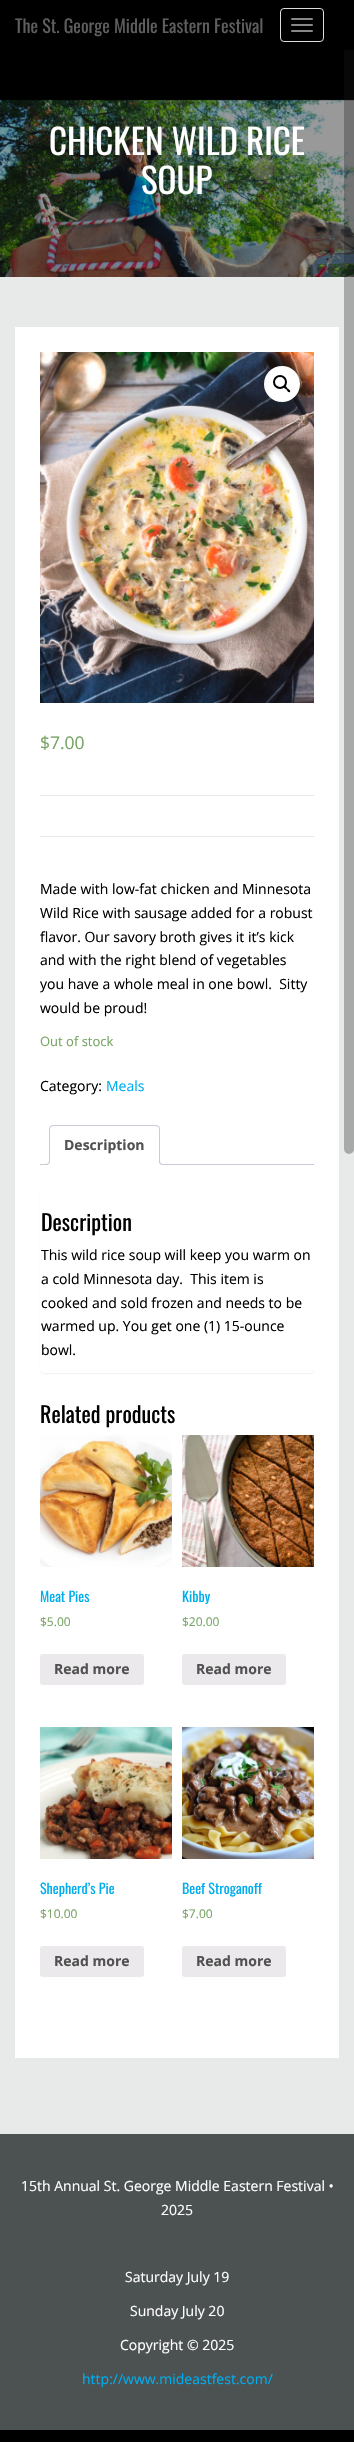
void draw(SkCanvas* canvas) {
    SkPaint paint;
    paint.setAntiAlias(true);
    canvas->clear(0xFF000000);
    canvas->drawImageRect(SkImages::DeferredFromEncodedData(SkData::MakeFromFileName("img1.png")), SkRect::MakeXYWH(0, 99, 354, 178), SkSamplingOptions());
    paint.setColor(0x66000000);
    canvas->drawRect(SkRect::MakeXYWH(0, 99, 354, 178), paint);
    paint.setColor(0xFFE8EAEA);
    canvas->drawRect(SkRect::MakeXYWH(0, 277, 354, 1857), paint);
    paint.setColor(0x4F1A1A1A);
    canvas->drawRoundRect(SkRect::MakeXYWH(344, 0, 10, 1154), 5, 5, paint);
    paint.setColor(0xFF000000);
    canvas->drawRect(SkRect::MakeXYWH(344, 0, 10, 50), paint);
    SkFont font1(fontMgr->matchFamilyStyle("Oswald", SkFontStyle::Normal()), 18);
    font1.setSubpixel(true);
    paint.setColor(0xFF5E5E5E);
    canvas->drawString("The St. George Middle Eastern Festival", 15, 33, font1, paint);
    paint.setStyle(SkPaint::kStroke_Style);
    paint.setStrokeWidth(1);
    paint.setColor(0xFFDDDDDD);
    canvas->drawRoundRect(SkRect::MakeXYWH(280.5f, 8.5f, 43, 33), 3.5f, 3.5f, paint);
    paint.setStyle(SkPaint::kFill_Style);
    paint.setColor(0xFF888888);
    canvas->drawRoundRect(SkRect::MakeXYWH(291, 18, 22, 2), 1, 1, paint);
    canvas->drawRoundRect(SkRect::MakeXYWH(291, 24, 22, 2), 1, 1, paint);
    canvas->drawRoundRect(SkRect::MakeXYWH(291, 30, 22, 2), 1, 1, paint);
    SkFont font2(fontMgr->matchFamilyStyle("Oswald", SkFontStyle::Normal()), 35);
    font2.setSubpixel(true);
    paint.setColor(0xFFFFFFFF);
    canvas->drawString("CHICKEN WILD RICE", 49, 155, font2, paint);
    canvas->drawString("SOUP", 141, 194, font2, paint);
    canvas->drawRect(SkRect::MakeXYWH(15, 327, 324, 1731), paint);
    canvas->drawImageRect(SkImages::DeferredFromEncodedData(SkData::MakeFromFileName("img2.png")), SkRect::MakeXYWH(40, 352, 274, 351), SkSamplingOptions());
    canvas->drawCircle(282, 384, 18, paint);
    paint.setStyle(SkPaint::kStroke_Style);
    paint.setStrokeWidth(2);
    paint.setColor(0xFF000000);
    canvas->drawCircle(280, 382, 6, paint);
    paint.setStyle(SkPaint::kFill_Style);
    canvas->drawPath(SkPathBuilder().moveTo(284, 386).cubicTo(285.5f, 385, 287, 387.5f, 287.5f, 388.5f).cubicTo(288.5f, 389, 291, 390.5f, 290, 392).cubicTo(288.5f, 393, 287, 390.5f, 286.5f, 389.5f).cubicTo(285.5f, 389, 283, 387.5f, 284, 386).close().detach(), paint);
    SkFont font3(fontMgr->matchFamilyStyle("Open Sans", SkFontStyle::Normal()), 17.5f);
    font3.setSubpixel(true);
    paint.setColor(0xFF77A464);
    canvas->drawString("$7.00", 40, 749, font3, paint);
    paint.setColor(0xFFE8EAEA);
    canvas->drawRect(SkRect::MakeXYWH(40, 795, 274, 1), paint);
    canvas->drawRect(SkRect::MakeXYWH(40, 836, 274, 1), paint);
    SkFont font4(fontMgr->matchFamilyStyle("Open Sans", SkFontStyle::Normal()), 14);
    font4.setSubpixel(true);
    paint.setColor(0xFF000000);
    canvas->drawString("Made with low-fat chicken and Minnesota", 40, 894, font4, paint);
    canvas->drawString("Wild Rice with sausage added for a robust", 40, 918, font4, paint);
    canvas->drawString("flavor. Our savory broth gives it it’s kick", 40, 942, font4, paint);
    canvas->drawString("and with the right blend of vegetables", 40, 965, font4, paint);
    canvas->drawString("you have a whole meal in one bowl.  Sitty", 40, 989, font4, paint);
    canvas->drawString("would be proud!", 40, 1013, font4, paint);
    SkFont font5(fontMgr->matchFamilyStyle("Open Sans", SkFontStyle::Normal()), 13);
    font5.setSubpixel(true);
    paint.setColor(0xFF77A464);
    canvas->drawString("Out of stock", 40, 1046, font5, paint);
    paint.setColor(0xFF000000);
    canvas->drawString("Category:", 40, 1091, font4, paint);
    paint.setColor(0xFF00AEEF);
    canvas->drawString("Meals", 106, 1091, font4, paint);
    paint.setColor(0xFFCFC8D8);
    canvas->drawRect(SkRect::MakeXYWH(40, 1164, 274, 1), paint);
    paint.setColor(0xFFFFFFFF);
    canvas->drawPath(SkPathBuilder().moveTo(53, 1125).lineTo(156, 1125).cubicTo(158, 1125, 160, 1127, 160, 1129).lineTo(160, 1165).lineTo(49, 1165).lineTo(49, 1129).cubicTo(49, 1127, 51, 1125, 53, 1125).close().detach(), paint);
    paint.setColor(0xFFCFC8D8);
    canvas->drawPath(SkPathBuilder().moveTo(53, 1125).lineTo(50, 1126).lineTo(51, 1127).lineTo(53, 1126).lineTo(156, 1126).lineTo(158, 1127).lineTo(159, 1126).lineTo(156, 1125).close().detach(), paint);
    canvas->drawPath(SkPathBuilder().moveTo(160, 1165).lineTo(160, 1129).cubicTo(160, 1128, 159.5f, 1127, 159, 1126).lineTo(158, 1127).cubicTo(159, 1127, 159, 1128, 159, 1129).lineTo(159, 1164).close().detach(), paint);
    paint.setColor(0xFFFFFFFF);
    canvas->drawPath(SkPathBuilder().moveTo(160, 1165).lineTo(159, 1164).lineTo(50, 1164).lineTo(49, 1165).close().detach(), paint);
    paint.setColor(0xFFCFC8D8);
    canvas->drawPath(SkPathBuilder().moveTo(49, 1165).lineTo(50, 1164).lineTo(50, 1129).cubicTo(50, 1128, 50, 1127, 51, 1127).lineTo(50, 1126).cubicTo(49.5f, 1127, 49, 1128, 49, 1129).close().detach(), paint);
    SkFont font6(fontMgr->matchFamilyStyle("Open Sans", SkFontStyle::Bold()), 14);
    font6.setSubpixel(true);
    paint.setColor(0xFF515151);
    canvas->drawString("Description", 64, 1150, font6, paint);
    canvas->save();
    canvas->clipRect(SkRect::MakeXYWH(40, 1125, 274, 40));
    paint.setColor(0xFFFFFFFF);
    canvas->drawPath(SkPathBuilder().moveTo(47, 1165).lineTo(47, 1167).cubicTo(50.5f, 1167, 52, 1165.5f, 52, 1162).lineTo(50, 1162).cubicTo(49.5f, 1163.5f, 48.5f, 1164.5f, 47, 1165).close().detach(), paint);
    canvas->restore();
    paint.setColor(0xFFCFC8D8);
    canvas->drawPath(SkPathBuilder(SkPathFillType::kEvenOdd).moveTo(45, 1160).lineTo(50, 1160).cubicTo(50, 1163.5f, 48.5f, 1165, 45, 1165).close().moveTo(45, 1160).lineTo(49, 1160).cubicTo(49, 1163, 48, 1164, 45, 1164).close().detach(), paint);
    canvas->save();
    canvas->clipRect(SkRect::MakeXYWH(40, 1125, 274, 40));
    paint.setColor(0xFFFFFFFF);
    canvas->drawPath(SkPathBuilder().moveTo(157, 1162).cubicTo(157, 1165.5f, 158.5f, 1167, 162, 1167).lineTo(162, 1165).cubicTo(160.5f, 1164.5f, 159.5f, 1163.5f, 159, 1162).close().detach(), paint);
    canvas->restore();
    paint.setColor(0xFFCFC8D8);
    canvas->drawPath(SkPathBuilder(SkPathFillType::kEvenOdd).moveTo(159, 1160).lineTo(164, 1160).lineTo(164, 1165).cubicTo(161.5f, 1165, 159, 1164, 159, 1161).close().moveTo(160, 1160).lineTo(164, 1160).lineTo(164, 1164).cubicTo(162, 1164, 160, 1163.5f, 160, 1161).close().detach(), paint);
    paint.setColor(0x0D000000);
    paint.setMaskFilter(SkMaskFilter::MakeBlur(kNormal_SkBlurStyle, 0.5f));
    canvas->drawRoundRect(SkRect::MakeXYWH(40, 1189, 274, 185), 4, 4, paint);
    paint.setMaskFilter(nullptr);
    paint.setColor(0xFFFFFFFF);
    canvas->drawRoundRect(SkRect::MakeXYWH(40, 1188, 274, 185), 4, 4, paint);
    SkFont font7(fontMgr->matchFamilyStyle("Oswald", SkFontStyle::Normal()), 22);
    font7.setSubpixel(true);
    paint.setColor(0xFF000000);
    canvas->drawString("Description", 41, 1231, font7, paint);
    canvas->drawString("This wild rice soup will keep you warm on", 41, 1260, font4, paint);
    canvas->drawString("a cold Minnesota day.  This item is", 41, 1284, font4, paint);
    canvas->drawString("cooked and sold frozen and needs to be", 41, 1308, font4, paint);
    canvas->drawString("warmed up. You get one (1) 15-ounce", 41, 1331, font4, paint);
    canvas->drawString("bowl.", 41, 1355, font4, paint);
    canvas->drawString("Related products", 40, 1423, font7, paint);
    canvas->drawImageRect(SkImages::DeferredFromEncodedData(SkData::MakeFromFileName("img3.png")), SkRect::MakeXYWH(40, 1435, 132, 132), SkSamplingOptions());
    SkFont font8(fontMgr->matchFamilyStyle("Oswald", SkFontStyle::Normal()), 14);
    font8.setSubpixel(true);
    paint.setColor(0xFF00AEEF);
    canvas->drawString("Meat Pies", 40, 1602, font8, paint);
    SkFont font9(fontMgr->matchFamilyStyle("Open Sans", SkFontStyle::Normal()), 12);
    font9.setSubpixel(true);
    paint.setColor(0xFF77A464);
    canvas->drawString("$5.00", 40, 1626, font9, paint);
    paint.setColor(0xFFEBE9EB);
    canvas->drawRoundRect(SkRect::MakeXYWH(40, 1654, 104, 31), 3, 3, paint);
    paint.setColor(0xFF515151);
    canvas->drawString("Read more", 54, 1674, font6, paint);
    canvas->drawImageRect(SkImages::DeferredFromEncodedData(SkData::MakeFromFileName("img4.png")), SkRect::MakeXYWH(182, 1435, 132, 132), SkSamplingOptions());
    paint.setColor(0xFF00AEEF);
    canvas->drawString("Kibby", 182, 1602, font8, paint);
    paint.setColor(0xFF77A464);
    canvas->drawString("$20.00", 182, 1626, font9, paint);
    paint.setColor(0xFFEBE9EB);
    canvas->drawRoundRect(SkRect::MakeXYWH(182, 1654, 104, 31), 3, 3, paint);
    paint.setColor(0xFF515151);
    canvas->drawString("Read more", 196, 1674, font6, paint);
    canvas->drawImageRect(SkImages::DeferredFromEncodedData(SkData::MakeFromFileName("img5.png")), SkRect::MakeXYWH(40, 1727, 132, 132), SkSamplingOptions());
    paint.setColor(0xFF00AEEF);
    canvas->drawString("Shepherd’s Pie", 40, 1894, font8, paint);
    paint.setColor(0xFF77A464);
    canvas->drawString("$10.00", 40, 1918, font9, paint);
    paint.setColor(0xFFEBE9EB);
    canvas->drawRoundRect(SkRect::MakeXYWH(40, 1946, 104, 31), 3, 3, paint);
    paint.setColor(0xFF515151);
    canvas->drawString("Read more", 54, 1966, font6, paint);
    canvas->drawImageRect(SkImages::DeferredFromEncodedData(SkData::MakeFromFileName("img6.png")), SkRect::MakeXYWH(182, 1727, 132, 132), SkSamplingOptions());
    paint.setColor(0xFF00AEEF);
    canvas->drawString("Beef Stroganoff", 182, 1894, font8, paint);
    paint.setColor(0xFF77A464);
    canvas->drawString("$7.00", 182, 1918, font9, paint);
    paint.setColor(0xFFEBE9EB);
    canvas->drawRoundRect(SkRect::MakeXYWH(182, 1946, 104, 31), 3, 3, paint);
    paint.setColor(0xFF515151);
    canvas->drawString("Read more", 196, 1966, font6, paint);
    paint.setColor(0xFF4C5152);
    canvas->drawRect(SkRect::MakeXYWH(0, 2134, 354, 296), paint);
    paint.setColor(0xFFFFFFFF);
    canvas->drawString("15th Annual St. George Middle Eastern Festival •", 21, 2191, font4, paint);
    canvas->drawString("2025", 161, 2215, font4, paint);
    canvas->drawString("Saturday July 19", 125, 2282, font4, paint);
    canvas->drawString("Sunday July 20", 130, 2316, font4, paint);
    canvas->drawString("Copyright © 2025", 120, 2350, font4, paint);
    paint.setColor(0xFF00AEEF);
    canvas->drawString("http://www.mideastfest.com/", 82, 2384, font4, paint);
}
